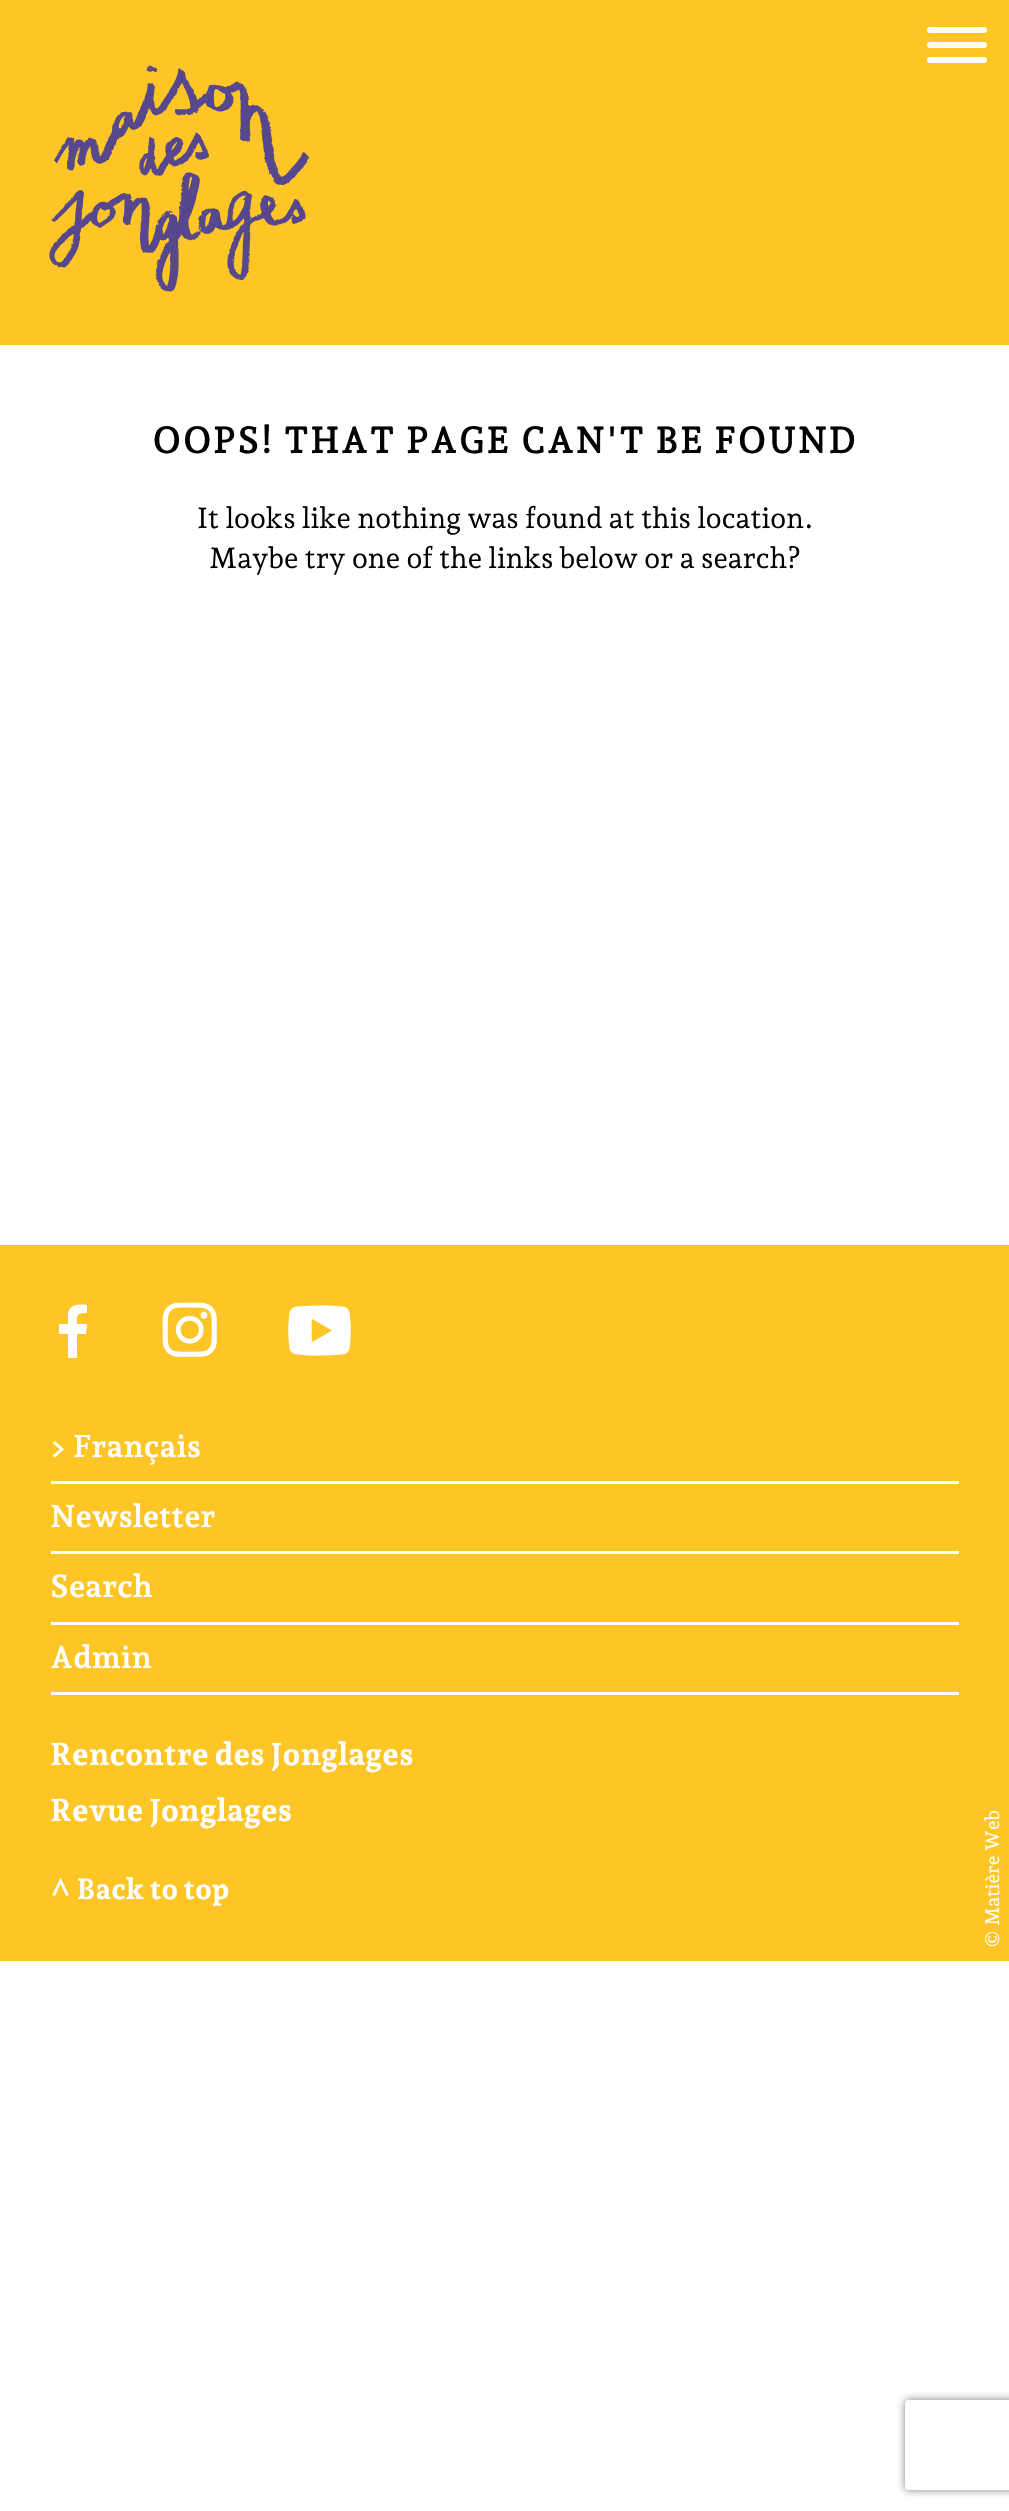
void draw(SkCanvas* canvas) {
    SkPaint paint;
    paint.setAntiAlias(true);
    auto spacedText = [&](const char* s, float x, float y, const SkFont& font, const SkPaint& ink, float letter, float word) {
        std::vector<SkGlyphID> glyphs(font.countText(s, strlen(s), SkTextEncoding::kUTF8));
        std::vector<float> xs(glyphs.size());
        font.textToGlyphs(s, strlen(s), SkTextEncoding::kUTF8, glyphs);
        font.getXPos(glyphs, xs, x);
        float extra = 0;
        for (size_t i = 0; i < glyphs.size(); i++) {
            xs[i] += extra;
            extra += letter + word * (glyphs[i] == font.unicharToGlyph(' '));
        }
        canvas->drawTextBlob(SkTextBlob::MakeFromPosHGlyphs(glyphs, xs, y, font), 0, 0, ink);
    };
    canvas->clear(0xFFFFFFFF);
    paint.setColor(0xFFFEC526);
    canvas->drawRect(SkRect::MakeXYWH(0, 0, 1009, 345), paint);
    paint.setColor(0xFFFFFFFF);
    canvas->drawRoundRect(SkRect::MakeXYWH(927, 27, 60, 6), 3, 3, paint);
    canvas->drawRoundRect(SkRect::MakeXYWH(927, 42, 60, 6), 3, 3, paint);
    canvas->drawRoundRect(SkRect::MakeXYWH(927, 57, 60, 6), 3, 3, paint);
    canvas->drawImageRect(SkImages::DeferredFromEncodedData(SkData::MakeFromFileName("img1.png")), SkRect::MakeXYWH(49, 65, 261, 227), SkSamplingOptions());
    SkFont font1(fontMgr->matchFamilyStyle("Andada Pro", SkFontStyle::Bold()), 36);
    font1.setSubpixel(true);
    paint.setColor(0xFF000100);
    spacedText("OOPS! THAT PAGE CAN'T BE FOUND", 152, 453, font1, paint, 1.8f, 0);
    SkFont font2(fontMgr->matchFamilyStyle("Andada Pro", SkFontStyle::Normal()), 28.8f);
    font2.setSubpixel(true);
    canvas->drawString("It looks like nothing was found at this location.", 197, 528, font2, paint);
    canvas->drawString("Maybe try one of the links below or a search?", 209, 568, font2, paint);
    paint.setColor(0xFFFEC526);
    canvas->drawRect(SkRect::MakeXYWH(0, 1245, 1009, 716), paint);
    paint.setColor(0xFFFFFFFF);
    canvas->drawPath(SkPathBuilder().moveTo(68, 1358).lineTo(77, 1358).lineTo(77, 1334).lineTo(86, 1334).lineTo(87, 1324).lineTo(77, 1324).cubicTo(77, 1314, 77, 1313, 87, 1313).lineTo(87, 1305).cubicTo(79, 1304, 69, 1304, 68, 1314).lineTo(68, 1324).lineTo(59, 1324).lineTo(59, 1334).lineTo(68, 1334).close().detach(), paint);
    canvas->drawImageRect(SkImages::DeferredFromEncodedData(SkData::MakeFromFileName("img2.png")), SkRect::MakeXYWH(162, 1302, 55, 55), SkSamplingOptions());
    canvas->drawImageRect(SkImages::DeferredFromEncodedData(SkData::MakeFromFileName("img3.png")), SkRect::MakeXYWH(288, 1305, 63, 51), SkSamplingOptions());
    canvas->drawRect(SkRect::MakeXYWH(51, 1481, 908, 3), paint);
    SkFont font3(fontMgr->matchFamilyStyle("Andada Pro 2", SkFontStyle::Bold()), 31.25f);
    font3.setSubpixel(true);
    canvas->drawString("> Français", 50, 1457, font3, paint);
    canvas->drawRect(SkRect::MakeXYWH(51, 1551, 908, 3), paint);
    canvas->drawString("Newsletter", 50, 1527, font3, paint);
    canvas->drawRect(SkRect::MakeXYWH(51, 1622, 908, 3), paint);
    canvas->drawString("Search", 50, 1597, font3, paint);
    canvas->drawRect(SkRect::MakeXYWH(51, 1692, 908, 3), paint);
    canvas->drawString("Admin", 50, 1668, font3, paint);
    SkFont font4(fontMgr->matchFamilyStyle("Andada Pro", SkFontStyle(800, SkFontStyle::kNormal_Width, SkFontStyle::kUpright_Slant)), 31.25f);
    font4.setSubpixel(true);
    canvas->drawString("Rencontre des Jonglages", 50, 1765, font4, paint);
    canvas->drawString("Revue Jonglages", 50, 1821, font4, paint);
    SkFont font5(fontMgr->matchFamilyStyle("Andada Pro", SkFontStyle(800, SkFontStyle::kNormal_Width, SkFontStyle::kUpright_Slant)), 28.8f);
    font5.setSubpixel(true);
    canvas->drawString("^ Back to top", 50, 1899, font5, paint);
    SkFont font6(fontMgr->matchFamilyStyle("Andada Pro", SkFontStyle::Normal()), 19.25f);
    font6.setSubpixel(true);
    canvas->save();
    canvas->rotate(-90, 999, 1948);
    canvas->drawString("© Matière Web", 999, 1948, font6, paint);
    canvas->restore();
    canvas->save();
    canvas->clipPath(SkPathBuilder(SkPathFillType::kEvenOdd).moveTo(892, 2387).lineTo(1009, 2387).lineTo(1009, 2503).lineTo(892, 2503).close().moveTo(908, 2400).lineTo(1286, 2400).cubicTo(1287.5f, 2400, 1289, 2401.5f, 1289, 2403).lineTo(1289, 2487).cubicTo(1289, 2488.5f, 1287.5f, 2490, 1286, 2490).lineTo(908, 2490).cubicTo(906.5f, 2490, 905, 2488.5f, 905, 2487).lineTo(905, 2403).cubicTo(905, 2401.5f, 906.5f, 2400, 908, 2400).close().detach(), true);
    paint.setColor(0xFF808080);
    paint.setMaskFilter(SkMaskFilter::MakeBlur(kNormal_SkBlurStyle, 4));
    canvas->drawRoundRect(SkRect::MakeXYWH(905, 2400, 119, 90), 3, 3, paint);
    paint.setMaskFilter(nullptr);
    canvas->restore();
}
